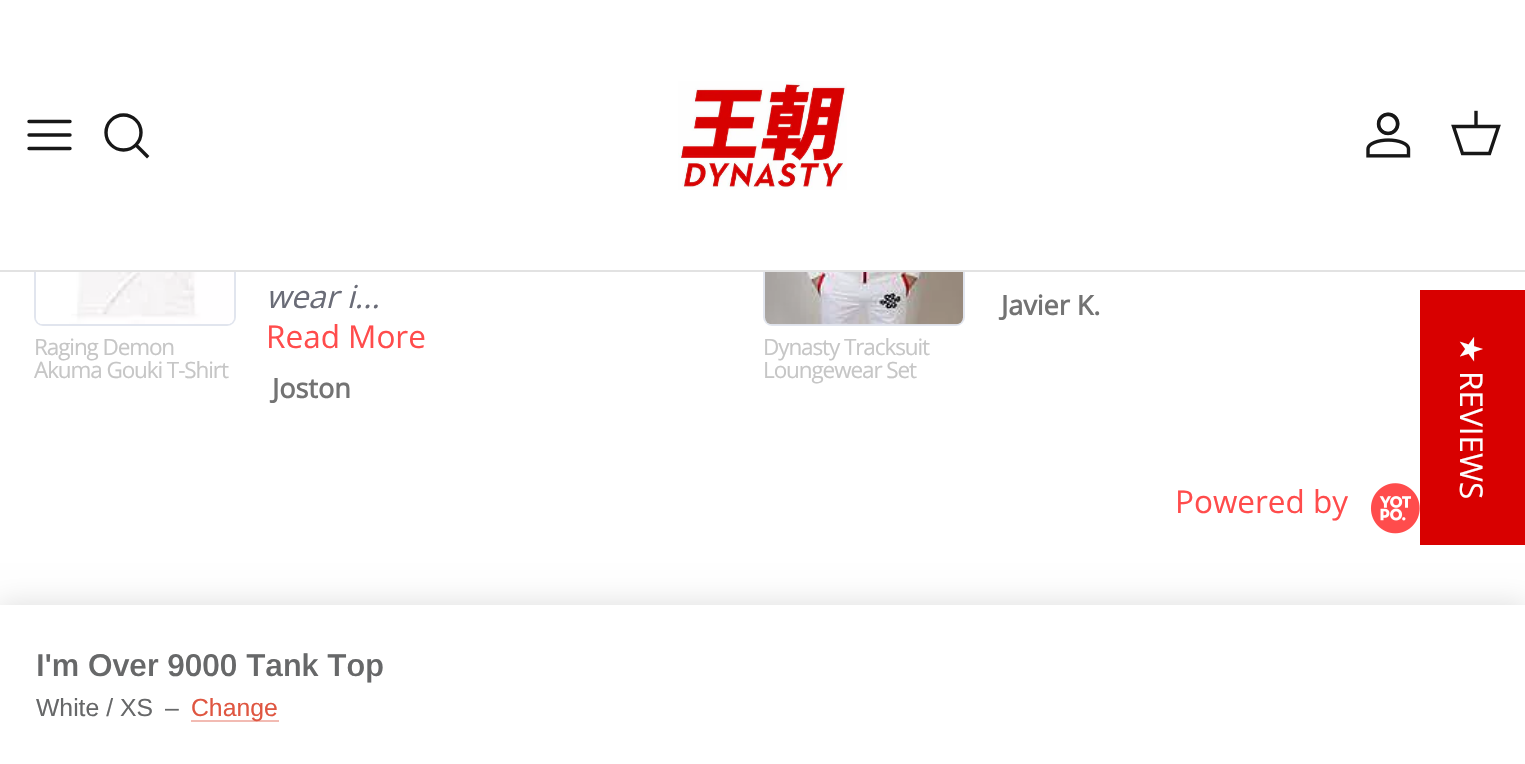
void draw(SkCanvas* canvas) {
    SkPaint paint;
    paint.setAntiAlias(true);
    auto spacedText = [&](const char* s, float x, float y, const SkFont& font, const SkPaint& ink, float letter, float word) {
        std::vector<SkGlyphID> glyphs(font.countText(s, strlen(s), SkTextEncoding::kUTF8));
        std::vector<float> xs(glyphs.size());
        font.textToGlyphs(s, strlen(s), SkTextEncoding::kUTF8, glyphs);
        font.getXPos(glyphs, xs, x);
        float extra = 0;
        for (size_t i = 0; i < glyphs.size(); i++) {
            xs[i] += extra;
            extra += letter + word * (glyphs[i] == font.unicharToGlyph(' '));
        }
        canvas->drawTextBlob(SkTextBlob::MakeFromPosHGlyphs(glyphs, xs, y, font), 0, 0, ink);
    };
    canvas->clear(0xFFFFFFFF);
    paint.setStyle(SkPaint::kStroke_Style);
    paint.setStrokeWidth(2);
    paint.setColor(0xFFE1E5EE);
    canvas->drawRoundRect(SkRect::MakeXYWH(35, 125, 200, 200), 8, 8, paint);
    canvas->drawRoundRect(SkRect::MakeXYWH(764, 125, 200, 200), 8, 8, paint);
    paint.setStyle(SkPaint::kFill_Style);
    paint.setColor(0xFFFFFFFF);
    canvas->drawRect(SkRect::MakeXYWH(34, 124, 931, 146), paint);
    paint.setColor(0xFFE2E2E2);
    canvas->drawRect(SkRect::MakeXYWH(0, 270, 1525, 2), paint);
    paint.setStyle(SkPaint::kStroke_Style);
    paint.setStrokeWidth(3.4f);
    paint.setStrokeCap(SkPaint::kRound_Cap);
    paint.setStrokeJoin(SkPaint::kRound_Join);
    paint.setColor(0xFF171717);
    canvas->drawPath(SkPathBuilder().moveTo(29, 135).lineTo(70, 135).moveTo(29, 121.5f).lineTo(70, 121.5f).moveTo(29, 148.5f).lineTo(70, 148.5f).detach(), paint);
    paint.setStrokeCap(SkPaint::kButt_Cap);
    paint.setStrokeJoin(SkPaint::kMiter_Join);
    canvas->drawCircle(123.5f, 132.5f, 17.5f, paint);
    paint.setStrokeCap(SkPaint::kSquare_Cap);
    canvas->drawPath(SkPathBuilder().moveTo(137, 146).lineTo(147, 156).detach(), paint);
    canvas->drawImageRect(SkImages::DeferredFromEncodedData(SkData::MakeFromFileName("img1.png")), SkRect::MakeXYWH(678, 81, 169, 109), SkSamplingOptions());
    canvas->drawImageRect(SkImages::DeferredFromEncodedData(SkData::MakeFromFileName("img2.png")), SkRect::MakeXYWH(1366, 112, 45, 46), SkSamplingOptions());
    paint.setStrokeCap(SkPaint::kButt_Cap);
    canvas->drawPath(SkPathBuilder().moveTo(1453.5f, 126.5f).lineTo(1498.5f, 126.5f).lineTo(1489.5f, 153.5f).lineTo(1462.5f, 153.5f).close().detach(), paint);
    paint.setStrokeCap(SkPaint::kSquare_Cap);
    canvas->drawPath(SkPathBuilder().moveTo(1476, 126).lineTo(1476, 112.5f).detach(), paint);
    canvas->drawImageRect(SkImages::DeferredFromEncodedData(SkData::MakeFromFileName("img3.png")), SkRect::MakeXYWH(36, 272, 198, 52), SkSamplingOptions());
    SkFont font1(fontMgr->matchFamilyStyle("Open Sans", SkFontStyle::Normal()), 22.5f);
    font1.setSubpixel(true);
    paint.setStyle(SkPaint::kFill_Style);
    paint.setColor(0xFFC6C6C6);
    spacedText("Raging Demon", 34, 355, font1, paint, -1.1f, 0);
    spacedText("Akuma Gouki T-Shirt", 34, 378, font1, paint, -1.1f, 0);
    SkFont font2(fontMgr->matchFamilyStyle("Open Sans", SkFontStyle::Italic()), 31.5f);
    font2.setSubpixel(true);
    paint.setColor(0xFF6A6C77);
    canvas->drawString("wear i...", 266, 308, font2, paint);
    SkFont font3(fontMgr->matchFamilyStyle("Open Sans", SkFontStyle::Normal()), 31.5f);
    font3.setSubpixel(true);
    paint.setColor(0xFFFF4C4C);
    canvas->drawString("Read More", 266, 348, font3, paint);
    SkFont font4(fontMgr->matchFamilyStyle("Open Sans", SkFontStyle::Bold()), 27);
    font4.setSubpixel(true);
    paint.setColor(0xFF737373);
    canvas->drawString("Joston", 272, 398, font4, paint);
    canvas->drawString("Javier K.", 1001, 315, font4, paint);
    canvas->drawImageRect(SkImages::DeferredFromEncodedData(SkData::MakeFromFileName("img4.png")), SkRect::MakeXYWH(765, 272, 198, 53), SkSamplingOptions());
    paint.setColor(0xFFC6C6C6);
    spacedText("Dynasty Tracksuit", 763, 355, font1, paint, -1.1f, 0);
    spacedText("Loungewear Set", 763, 378, font1, paint, -1.1f, 0);
    paint.setColor(0xFFFF4C4C);
    canvas->drawString("Powered by", 1175, 513, font3, paint);
    canvas->drawImageRect(SkImages::DeferredFromEncodedData(SkData::MakeFromFileName("img5.png")), SkRect::MakeXYWH(1370, 483, 50, 51), SkSamplingOptions());
    paint.setColor(0x1F000000);
    paint.setMaskFilter(SkMaskFilter::MakeBlur(kNormal_SkBlurStyle, 13.5f));
    canvas->drawRect(SkRect::MakeXYWH(-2, 603, 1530, 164), paint);
    paint.setMaskFilter(nullptr);
    paint.setColor(0xFFFFFFFF);
    canvas->drawRect(SkRect::MakeXYWH(0, 605, 1525, 159), paint);
    SkFont font5(fontMgr->matchFamilyStyle("Arimo", SkFontStyle(600, SkFontStyle::kNormal_Width, SkFontStyle::kUpright_Slant)), 31.5f);
    font5.setSubpixel(true);
    paint.setColor(0xFF676869);
    canvas->drawString("I'm Over 9000 Tank Top", 36, 676, font5, paint);
    SkFont font6(fontMgr->matchFamilyStyle("Arimo", SkFontStyle::Normal()), 24.75f);
    font6.setSubpixel(true);
    canvas->drawString("White / XS", 36, 716, font6, paint);
    canvas->drawString("–", 165, 716, font6, paint);
    paint.setColor(0xFFF2BBB3);
    canvas->drawRect(SkRect::MakeXYWH(191, 720, 88, 2), paint);
    paint.setColor(0xFFDF5641);
    canvas->drawString("Change", 191, 716, font6, paint);
    paint.setColor(0xFFD80000);
    canvas->drawRect(SkRect::MakeXYWH(1420, 290, 105, 255), paint);
    SkFont font7(fontMgr->matchFamilyStyle("DejaVu Sans", SkFontStyle::Normal()), 31.5f);
    font7.setSubpixel(true);
    paint.setColor(0xFFFEFEFE);
    canvas->save();
    canvas->rotate(90, 1460, 335);
    canvas->drawString("★", 1460, 335, font7, paint);
    canvas->restore();
    canvas->save();
    canvas->rotate(90, 1460, 371);
    canvas->drawString("REVIEWS", 1460, 371, font3, paint);
    canvas->restore();
}
